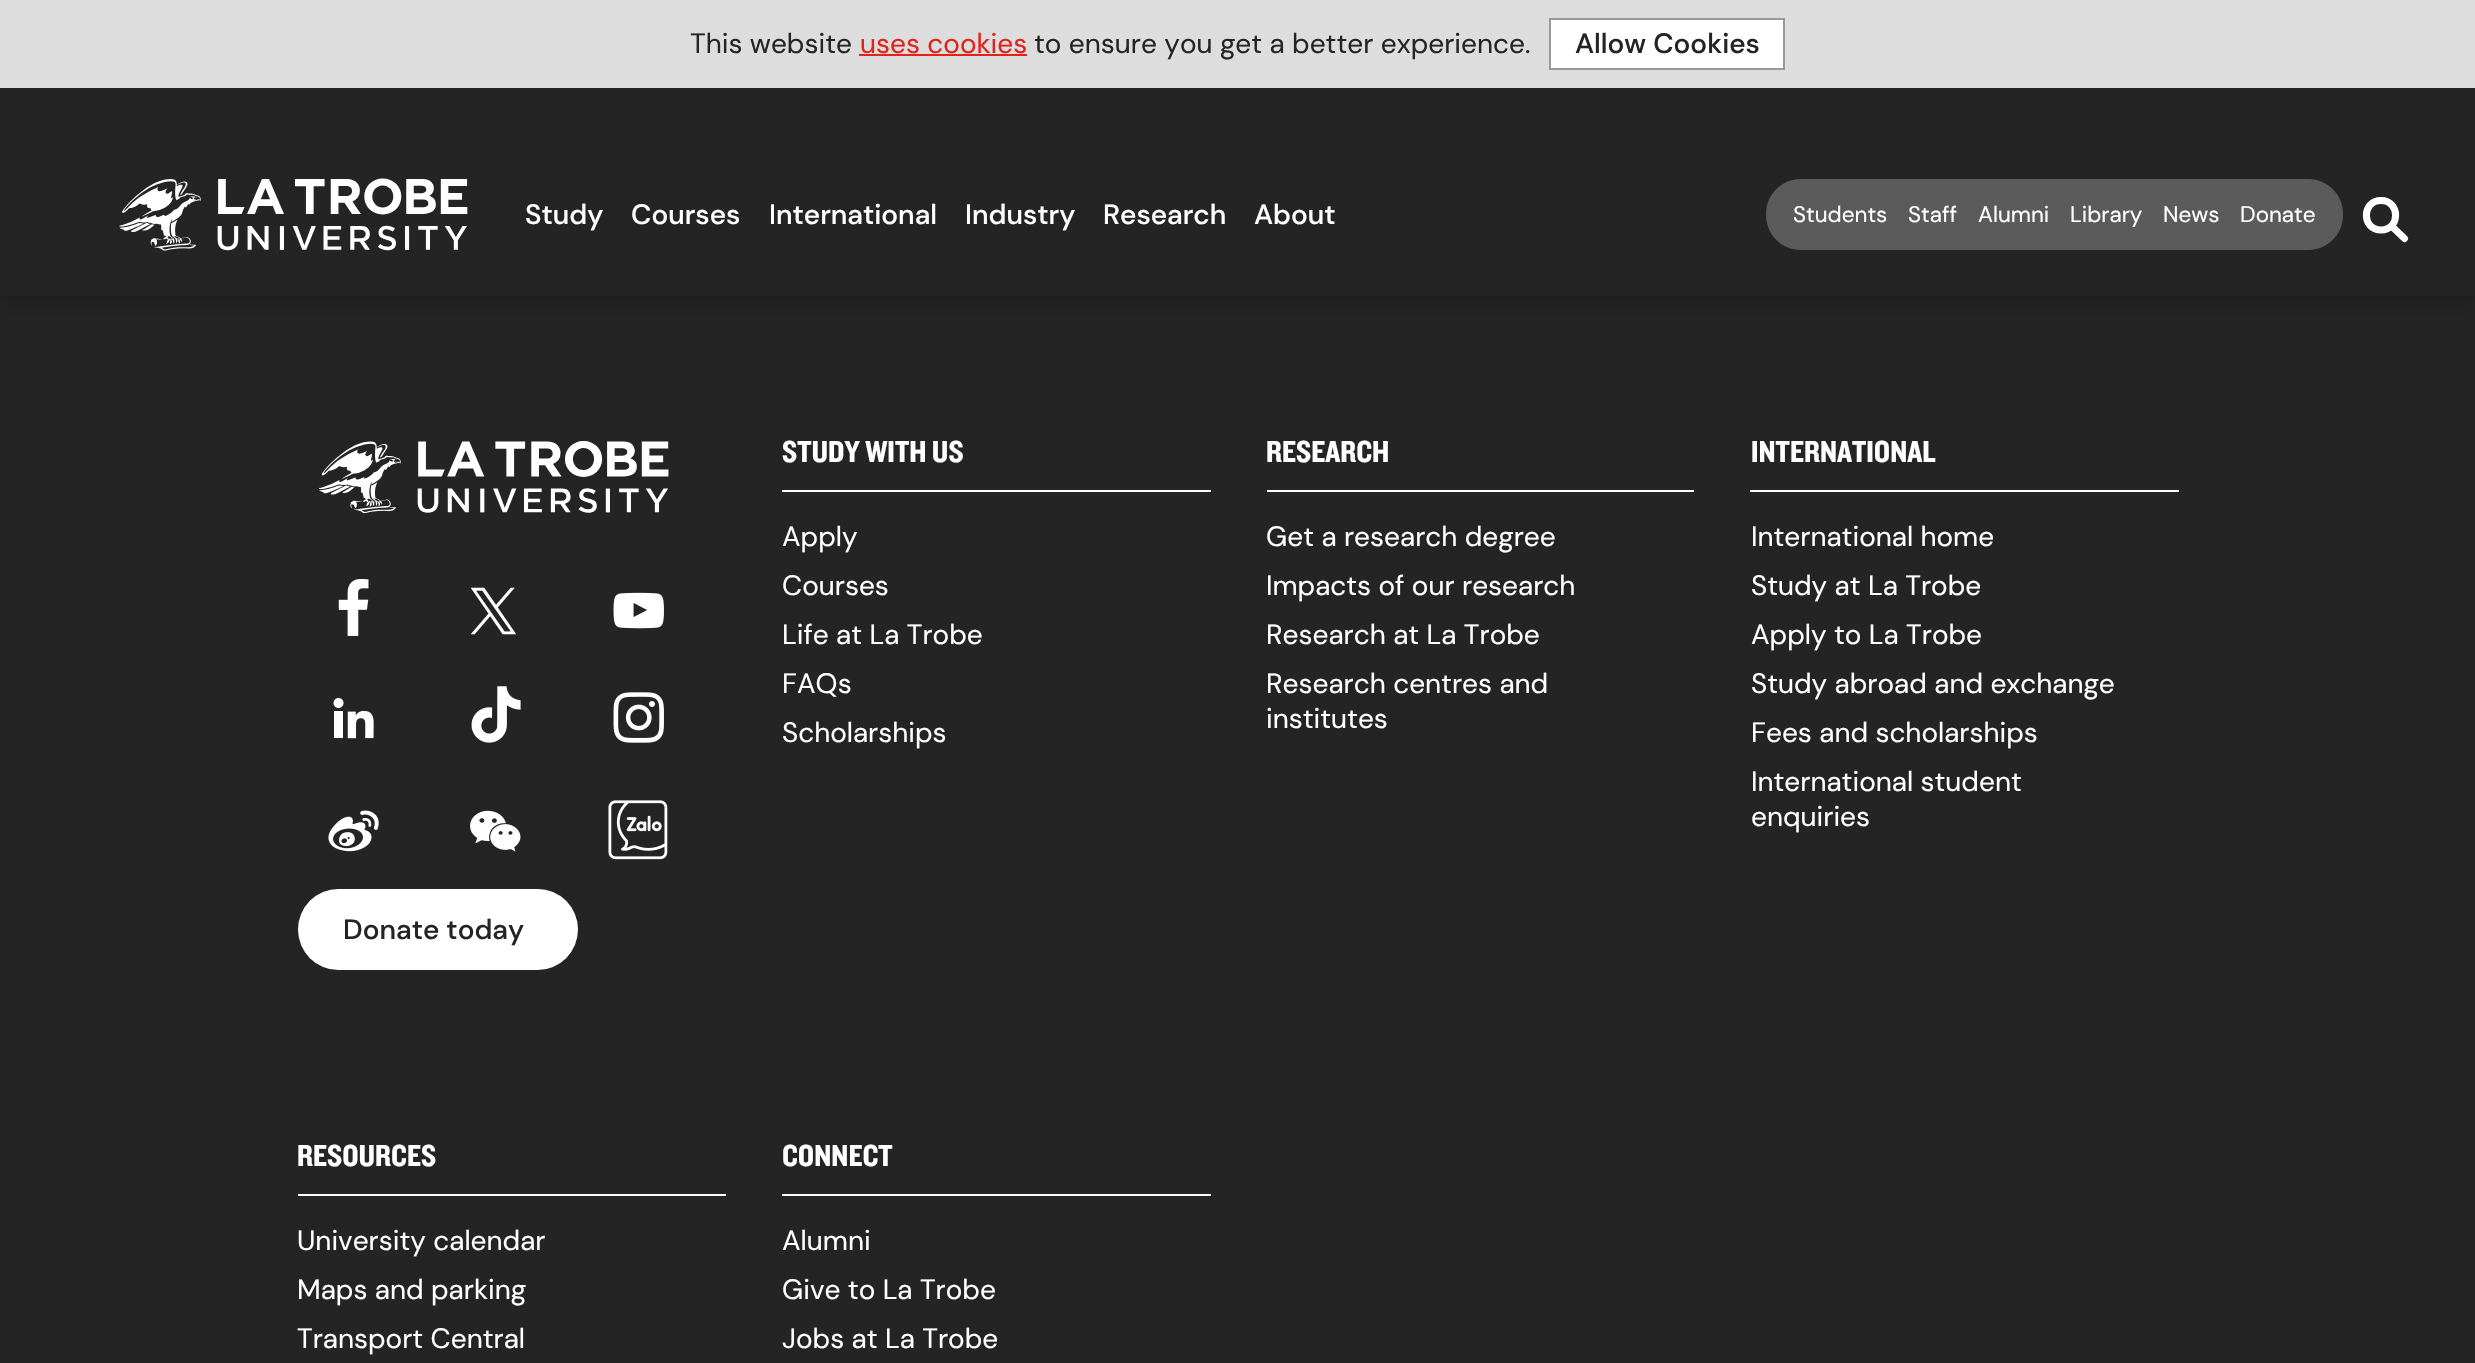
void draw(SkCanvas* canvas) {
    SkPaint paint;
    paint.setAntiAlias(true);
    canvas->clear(0xFF242424);
    paint.setColor(0x4D000000);
    paint.setMaskFilter(SkMaskFilter::MakeBlur(kNormal_SkBlurStyle, 10.5f));
    canvas->drawRect(SkRect::MakeXYWH(0, 0, 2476, 296), paint);
    paint.setMaskFilter(nullptr);
    paint.setColor(0xFF242424);
    canvas->drawRect(SkRect::MakeXYWH(0, 88, 2475, 208), paint);
    paint.setColor(0xFFDDDDDD);
    canvas->drawRect(SkRect::MakeXYWH(0, 0, 2475, 88), paint);
    SkFont font1(fontMgr->matchFamilyStyle("DM Sans", SkFontStyle::Normal()), 28);
    font1.setSubpixel(true);
    paint.setColor(0xFF242424);
    canvas->drawString("This website", 690, 53, font1, paint);
    paint.setColor(0xFFE2231B);
    canvas->drawString("uses cookies", 860, 53, font1, paint);
    canvas->drawRect(SkRect::MakeXYWH(859, 54, 168, 2), paint);
    paint.setColor(0xFF242424);
    canvas->drawString("to ensure you get a better experience.", 1034, 53, font1, paint);
    paint.setColor(0xFFFFFFFF);
    canvas->drawRect(SkRect::MakeXYWH(1550, 19, 234, 50), paint);
    paint.setStyle(SkPaint::kStroke_Style);
    paint.setStrokeWidth(2);
    paint.setColor(0xFF999999);
    canvas->drawRect(SkRect::MakeXYWH(1550, 19, 234, 50), paint);
    SkFont font2(fontMgr->matchFamilyStyle("DM Sans", SkFontStyle(500, SkFontStyle::kNormal_Width, SkFontStyle::kUpright_Slant)), 28);
    font2.setSubpixel(true);
    paint.setStyle(SkPaint::kFill_Style);
    paint.setColor(0xFF242424);
    canvas->drawString("Allow Cookies", 1575, 53, font2, paint);
    paint.setColor(0xFFFFFFFF);
    canvas->drawString("Study", 525, 224, font2, paint);
    canvas->drawString("Courses", 631, 224, font2, paint);
    canvas->drawString("International", 769, 224, font2, paint);
    canvas->drawString("Industry", 965, 224, font2, paint);
    canvas->drawString("Research", 1103, 224, font2, paint);
    canvas->drawString("About", 1254, 224, font2, paint);
    canvas->drawImageRect(SkImages::DeferredFromEncodedData(SkData::MakeFromFileName("img1.png")), SkRect::MakeXYWH(119, 178, 349, 73), SkSamplingOptions());
    paint.setColor(0xFF5B5B5B);
    canvas->drawPath(SkPathBuilder().moveTo(1801, 179).lineTo(1897, 179).lineTo(1897, 250).lineTo(1801, 250).cubicTo(1781.5f, 250, 1766, 234.5f, 1766, 215).lineTo(1766, 214).cubicTo(1766, 194.5f, 1781.5f, 179, 1801, 179).close().detach(), paint);
    SkFont font3(fontMgr->matchFamilyStyle("DM Sans", SkFontStyle::Normal()), 22.5f);
    font3.setSubpixel(true);
    paint.setColor(0xFFFFFFFF);
    canvas->drawString("Students", 1793, 222, font3, paint);
    paint.setColor(0xFF5B5B5B);
    canvas->drawRect(SkRect::MakeXYWH(1897, 179, 333, 71), paint);
    paint.setColor(0xFFFFFFFF);
    canvas->drawString("Staff", 1908, 222, font3, paint);
    canvas->drawString("Alumni", 1978, 222, font3, paint);
    canvas->drawString("Library", 2070, 222, font3, paint);
    canvas->drawString("News", 2163, 222, font3, paint);
    paint.setColor(0xFF5B5B5B);
    canvas->drawPath(SkPathBuilder().moveTo(2230, 179).lineTo(2308, 179).cubicTo(2327.5f, 179, 2343, 194.5f, 2343, 214).lineTo(2343, 215).cubicTo(2343, 234.5f, 2327.5f, 250, 2308, 250).lineTo(2230, 250).close().detach(), paint);
    paint.setColor(0xFFFFFFFF);
    canvas->drawString("Donate", 2240, 222, font3, paint);
    paint.setStyle(SkPaint::kStroke_Style);
    paint.setStrokeWidth(7);
    paint.setStrokeCap(SkPaint::kRound_Cap);
    paint.setStrokeJoin(SkPaint::kRound_Join);
    canvas->drawPath(SkPathBuilder().moveTo(2381, 230).cubicTo(2400.5f, 230, 2400.5f, 200.5f, 2381, 200.5f).cubicTo(2361.5f, 200.5f, 2361.5f, 230, 2381, 230).close().moveTo(2404.5f, 238.5f).lineTo(2392, 226.5f).detach(), paint);
    paint.setStyle(SkPaint::kFill_Style);
    canvas->drawRect(SkRect::MakeXYWH(782, 490, 429, 2), paint);
    SkFont font4(fontMgr->matchFamilyStyle("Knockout", SkFontStyle::Normal()), 31.5f);
    font4.setSubpixel(true);
    canvas->drawString("STUDY WITH US", 782, 462, font4, paint);
    canvas->drawString("Apply", 782, 546, font1, paint);
    canvas->drawString("Courses", 782, 595, font1, paint);
    canvas->drawString("Life at La Trobe", 782, 644, font1, paint);
    canvas->drawString("FAQs", 782, 693, font1, paint);
    canvas->drawString("Scholarships", 782, 742, font1, paint);
    canvas->drawRect(SkRect::MakeXYWH(1267, 490, 427, 2), paint);
    canvas->drawString("RESEARCH", 1266, 462, font4, paint);
    canvas->drawString("Get a research degree", 1266, 546, font1, paint);
    canvas->drawString("Impacts of our research", 1266, 595, font1, paint);
    canvas->drawString("Research at La Trobe", 1266, 644, font1, paint);
    canvas->drawString("Research centres and", 1266, 693, font1, paint);
    canvas->drawString("institutes", 1266, 728, font1, paint);
    canvas->drawRect(SkRect::MakeXYWH(1750, 490, 429, 2), paint);
    canvas->drawString("INTERNATIONAL", 1751, 462, font4, paint);
    canvas->drawString("International home", 1751, 546, font1, paint);
    canvas->drawString("Study at La Trobe", 1751, 595, font1, paint);
    canvas->drawString("Apply to La Trobe", 1751, 644, font1, paint);
    canvas->drawString("Study abroad and exchange", 1751, 693, font1, paint);
    canvas->drawString("Fees and scholarships", 1751, 742, font1, paint);
    canvas->drawString("International student", 1751, 791, font1, paint);
    canvas->drawString("enquiries", 1751, 826, font1, paint);
    canvas->drawImageRect(SkImages::DeferredFromEncodedData(SkData::MakeFromFileName("img2.png")), SkRect::MakeXYWH(319, 441, 350, 72), SkSamplingOptions());
    canvas->drawImageRect(SkImages::DeferredFromEncodedData(SkData::MakeFromFileName("img3.png")), SkRect::MakeXYWH(338, 579, 31, 57), SkSamplingOptions());
    canvas->drawImageRect(SkImages::DeferredFromEncodedData(SkData::MakeFromFileName("img4.png")), SkRect::MakeXYWH(470, 587, 47, 48), SkSamplingOptions());
    canvas->drawImageRect(SkImages::DeferredFromEncodedData(SkData::MakeFromFileName("img5.png")), SkRect::MakeXYWH(613, 592, 51, 37), SkSamplingOptions());
    canvas->drawImageRect(SkImages::DeferredFromEncodedData(SkData::MakeFromFileName("img6.png")), SkRect::MakeXYWH(333, 698, 41, 41), SkSamplingOptions());
    canvas->drawImageRect(SkImages::DeferredFromEncodedData(SkData::MakeFromFileName("img7.png")), SkRect::MakeXYWH(471, 686, 50, 57), SkSamplingOptions());
    canvas->drawImageRect(SkImages::DeferredFromEncodedData(SkData::MakeFromFileName("img8.png")), SkRect::MakeXYWH(613, 692, 51, 51), SkSamplingOptions());
    canvas->drawImageRect(SkImages::DeferredFromEncodedData(SkData::MakeFromFileName("img9.png")), SkRect::MakeXYWH(328, 810, 51, 42), SkSamplingOptions());
    canvas->drawImageRect(SkImages::DeferredFromEncodedData(SkData::MakeFromFileName("img10.png")), SkRect::MakeXYWH(470, 810, 51, 42), SkSamplingOptions());
    canvas->drawImageRect(SkImages::DeferredFromEncodedData(SkData::MakeFromFileName("img11.png")), SkRect::MakeXYWH(608, 800, 60, 60), SkSamplingOptions());
    canvas->drawRoundRect(SkRect::MakeXYWH(298, 889, 280, 81), 40.5f, 40.5f, paint);
    paint.setColor(0xFF242424);
    canvas->drawString("Donate today", 343, 939, font2, paint);
    paint.setColor(0xFFFFFFFF);
    canvas->drawRect(SkRect::MakeXYWH(298, 1194, 428, 2), paint);
    canvas->drawString("RESOURCES", 297, 1166, font4, paint);
    canvas->drawString("University calendar", 297, 1250, font1, paint);
    canvas->drawString("Maps and parking", 297, 1299, font1, paint);
    canvas->drawString("Transport Central", 297, 1348, font1, paint);
    canvas->drawRect(SkRect::MakeXYWH(782, 1194, 429, 2), paint);
    canvas->drawString("CONNECT", 782, 1166, font4, paint);
    canvas->drawString("Alumni", 782, 1250, font1, paint);
    canvas->drawString("Give to La Trobe", 782, 1299, font1, paint);
    canvas->drawString("Jobs at La Trobe", 782, 1348, font1, paint);
}
